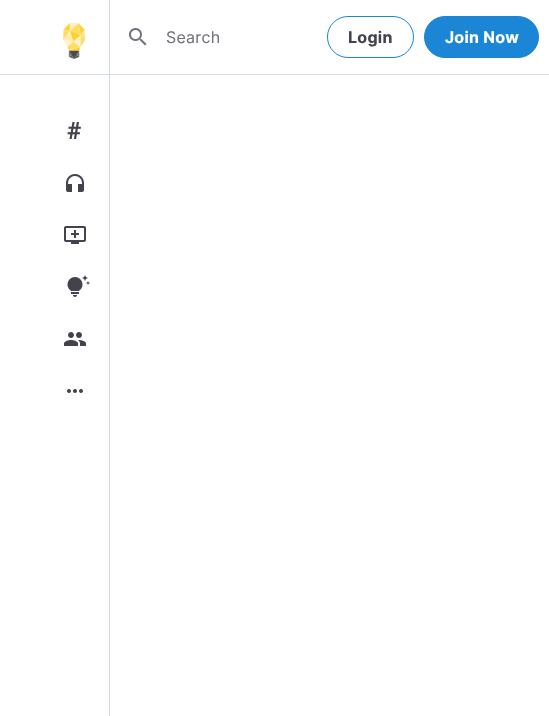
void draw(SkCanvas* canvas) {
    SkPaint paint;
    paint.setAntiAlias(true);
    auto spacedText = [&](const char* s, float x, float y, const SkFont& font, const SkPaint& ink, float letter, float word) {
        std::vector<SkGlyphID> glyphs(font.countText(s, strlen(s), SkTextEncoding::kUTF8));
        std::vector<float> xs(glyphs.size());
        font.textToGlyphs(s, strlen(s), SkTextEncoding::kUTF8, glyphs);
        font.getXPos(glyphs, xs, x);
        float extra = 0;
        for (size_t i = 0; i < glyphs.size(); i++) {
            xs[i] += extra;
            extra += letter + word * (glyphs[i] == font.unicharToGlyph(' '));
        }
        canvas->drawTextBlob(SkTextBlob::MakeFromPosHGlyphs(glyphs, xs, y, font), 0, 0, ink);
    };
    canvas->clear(0xFFFFFFFF);
    paint.setColor(0xFFD3DBE3);
    canvas->drawRect(SkRect::MakeXYWH(0, 74, 549, 1), paint);
    canvas->drawRect(SkRect::MakeXYWH(109, 0, 1, 74), paint);
    canvas->drawImageRect(SkImages::DeferredFromEncodedData(SkData::MakeFromFileName("img1.png")), SkRect::MakeXYWH(63, 23, 23, 36), SkSamplingOptions());
    canvas->drawImageRect(SkImages::DeferredFromEncodedData(SkData::MakeFromFileName("img2.png")), SkRect::MakeXYWH(129, 28, 18, 18), SkSamplingOptions());
    SkFont font1(fontMgr->matchFamilyStyle("Inter", SkFontStyle::Normal()), 16);
    font1.setSubpixel(true);
    paint.setColor(0xFF72727C);
    spacedText("Search", 166, 43, font1, paint, 0.25f, 0);
    paint.setStyle(SkPaint::kStroke_Style);
    paint.setStrokeWidth(1);
    paint.setColor(0xFF1B85D6);
    canvas->drawRoundRect(SkRect::MakeXYWH(327.5f, 16.5f, 86, 41), 20.5f, 20.5f, paint);
    SkFont font2(fontMgr->matchFamilyStyle("Inter", SkFontStyle::Bold()), 16);
    font2.setSubpixel(true);
    paint.setStyle(SkPaint::kFill_Style);
    paint.setColor(0xFF43434D);
    spacedText("Login", 348, 43, font2, paint, 0.25f, 0);
    paint.setColor(0xFF1B85D6);
    canvas->drawRoundRect(SkRect::MakeXYWH(424.5f, 16.5f, 114, 41), 20.5f, 20.5f, paint);
    paint.setStyle(SkPaint::kStroke_Style);
    canvas->drawRoundRect(SkRect::MakeXYWH(424.5f, 16.5f, 114, 41), 20.5f, 20.5f, paint);
    paint.setStyle(SkPaint::kFill_Style);
    paint.setColor(0xFFFFFFFF);
    spacedText("Join Now", 445, 43, font2, paint, 0.25f, 0);
    paint.setColor(0xFFD3DBE3);
    canvas->drawRect(SkRect::MakeXYWH(109, 75, 1, 641), paint);
    SkFont font3(fontMgr->matchFamilyStyle("Roboto", SkFontStyle::Bold()), 24);
    font3.setSubpixel(true);
    paint.setColor(0xFF43434D);
    canvas->drawString("#", 67, 139, font3, paint);
    canvas->drawImageRect(SkImages::DeferredFromEncodedData(SkData::MakeFromFileName("img3.png")), SkRect::MakeXYWH(66, 174, 18, 18), SkSamplingOptions());
    canvas->drawImageRect(SkImages::DeferredFromEncodedData(SkData::MakeFromFileName("img4.png")), SkRect::MakeXYWH(64, 226, 22, 18), SkSamplingOptions());
    canvas->drawImageRect(SkImages::DeferredFromEncodedData(SkData::MakeFromFileName("img5.png")), SkRect::MakeXYWH(67, 275, 23, 22), SkSamplingOptions());
    canvas->drawImageRect(SkImages::DeferredFromEncodedData(SkData::MakeFromFileName("img6.png")), SkRect::MakeXYWH(64, 332, 22, 14), SkSamplingOptions());
    canvas->drawImageRect(SkImages::DeferredFromEncodedData(SkData::MakeFromFileName("img7.png")), SkRect::MakeXYWH(67, 389, 16, 4), SkSamplingOptions());
}
